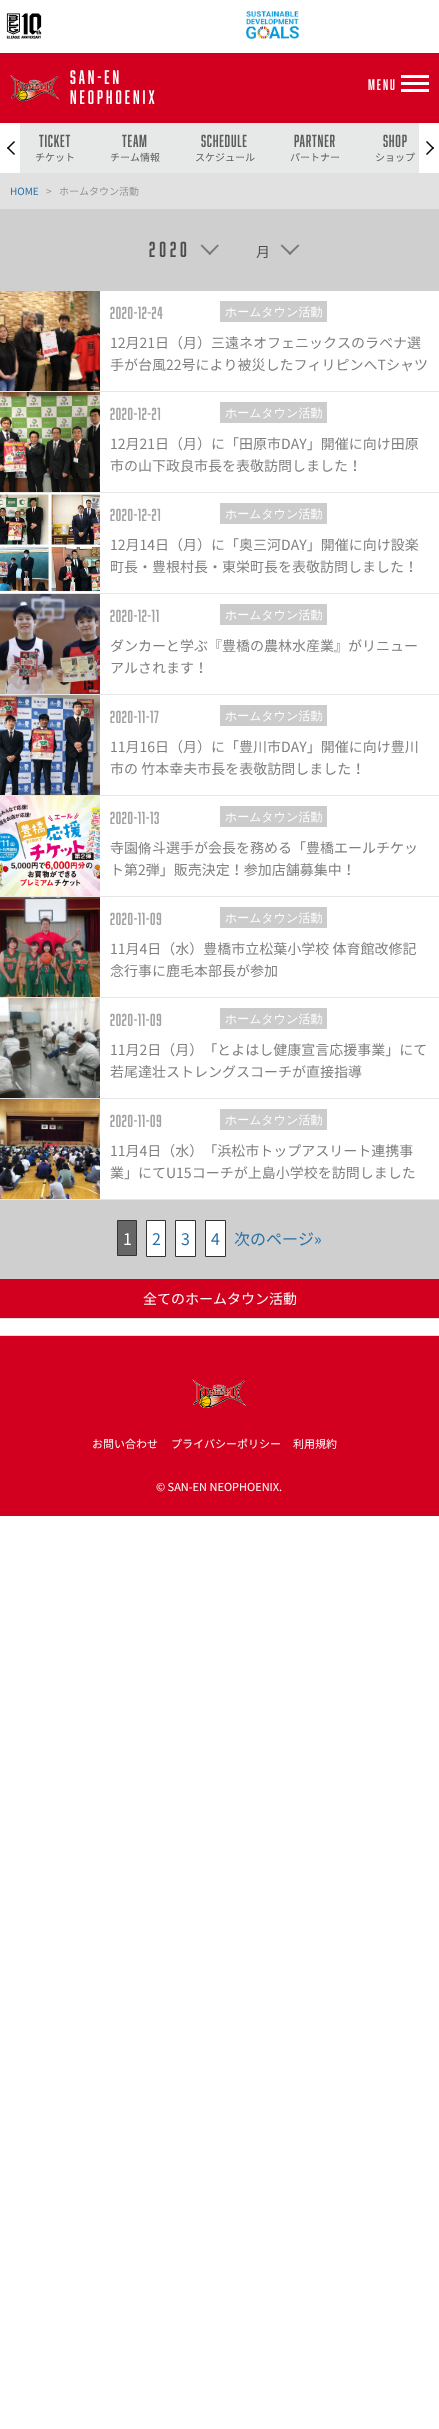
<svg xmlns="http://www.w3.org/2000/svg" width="439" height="2429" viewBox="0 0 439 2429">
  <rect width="100%" height="100%" fill="#fff"/>
  <image x="6" y="13" width="36" height="26" href="img/1.png"/>
  <image x="246" y="11" width="53" height="28" href="img/2.png"/>
  <path d="M0 53h439v70H0z" fill="#d2001e"/>
  <image x="10" y="75" width="50" height="27" href="img/3.png"/>
  <path d="M401 75h28v3H401z" fill="#fff"/>
  <path d="M401 82h28v3H401z" fill="#fff"/>
  <path d="M401 89h28v3H401z" fill="#fff"/>
  <path d="M20 123h399v50H20z" fill="#e7e8e8"/>
  <path d="M8 147L15 154L14 155L7 148Z" fill="#000"/>
  <path d="M7 148L14 141L15 142L8 149Z" fill="#000"/>
  <path d="M427 141L434 148L433 149L426 142Z" fill="#000"/>
  <path d="M426 154L433 147L434 148L427 155Z" fill="#000"/>
  <path d="M0 209h439v1070H0z" fill="#cfcfcf"/>
  <path d="M0 173h439v36H0z" fill="#e1e1e2"/>
  <path d="M202 244.5L211 253.5L209.5 255L200.5 245.5Z" fill="#797979"/>
  <path d="M208.5 253.5L217.5 244.5L219 245.5L210 255Z" fill="#797979"/>
  <path d="M282 244.5L291.5 253.5L290 255L280.5 245.5Z" fill="#797979"/>
  <path d="M288.5 253.5L298 244.5L299.5 245.5L290 255Z" fill="#797979"/>
  <path d="M100 291h339v100H100z" fill="#fff"/>
  <path d="M0 391h439v1H0z" fill="#e6e7e7"/>
  <image x="0" y="291" width="100" height="100" href="img/4.png"/>
  <path d="M220 301h107v21H220z" fill="#ccc"/>
  <path d="M100 392h339v100H100z" fill="#fff"/>
  <path d="M0 492h439v1H0z" fill="#e6e7e7"/>
  <image x="0" y="392" width="100" height="100" href="img/5.png"/>
  <path d="M220 402h107v21H220z" fill="#ccc"/>
  <path d="M0 493h439v100H0z" fill="#fff"/>
  <path d="M0 593h439v1H0z" fill="#e6e7e7"/>
  <image x="0" y="494" width="100" height="98" href="img/6.png"/>
  <path d="M220 503h107v21H220z" fill="#ccc"/>
  <path d="M100 594h339v100H100z" fill="#fff"/>
  <path d="M0 694h439v1H0z" fill="#e6e7e7"/>
  <image x="0" y="594" width="100" height="100" href="img/7.png"/>
  <path d="M220 604h107v21H220z" fill="#ccc"/>
  <path d="M100 695h339v100H100z" fill="#fff"/>
  <path d="M0 795h439v1H0z" fill="#e6e7e7"/>
  <image x="0" y="695" width="100" height="100" href="img/8.png"/>
  <path d="M220 705h107v21H220z" fill="#ccc"/>
  <path d="M100 796h339v100H100z" fill="#fff"/>
  <path d="M0 896h439v1H0z" fill="#e6e7e7"/>
  <image x="0" y="796" width="100" height="100" href="img/9.png"/>
  <path d="M220 806h107v21H220z" fill="#ccc"/>
  <path d="M100 897h339v100H100z" fill="#fff"/>
  <path d="M0 997h439v1H0z" fill="#e6e7e7"/>
  <image x="0" y="897" width="100" height="100" href="img/10.png"/>
  <path d="M220 907h107v21H220z" fill="#ccc"/>
  <path d="M100 998h339v100H100z" fill="#fff"/>
  <path d="M0 1098h439v1H0z" fill="#e6e7e7"/>
  <image x="0" y="998" width="100" height="100" href="img/11.png"/>
  <path d="M220 1008h107v21H220z" fill="#ccc"/>
  <path d="M100 1099h339v100H100z" fill="#fff"/>
  <path d="M0 1199h439v1H0z" fill="#e6e7e7"/>
  <image x="0" y="1099" width="100" height="100" href="img/12.png"/>
  <path d="M220 1109h107v21H220z" fill="#ccc"/>
  <path d="M117.5 1220.5h19v35H117.5z" fill="#666" stroke="#333"/>
  <path d="M146.5 1220.5h19v36H146.5z" fill="#fff" stroke="#333"/>
  <path d="M175.5 1220.5h20v36H175.5z" fill="#fff" stroke="#333"/>
  <path d="M205.5 1220.5h20v36H205.5z" fill="#fff" stroke="#333"/>
  <path d="M0 1279h439v39H0z" fill="#d2001e"/>
  <path d="M0 1318h439v1H0z" fill="#ddd"/>
  <path d="M0 1335h439v1H0z" fill="#ddd"/>
  <path d="M0 1336h439v180H0z" fill="#d2001e"/>
  <image x="192" y="1379" width="55" height="30" href="img/13.png"/>
  <g font-family="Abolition" font-size="18" letter-spacing="3" fill="#fff">
    <text x="70" y="84">SAN-EN</text>
    <text x="70" y="104">NEOPHOENIX</text>
  </g>
  <text x="368" y="90" font-family="Abolition" font-size="14" letter-spacing="2" fill="#fff">MENU</text>
  <text x="39" y="147" font-family="Abolition" font-size="16" letter-spacing="0.75" fill="#5c5c5c">TICKET</text>
  <text x="35" y="161" font-family="Noto Sans CJK JP" font-size="10" fill="#5c5c5c">チケット</text>
  <text x="122" y="147" font-family="Abolition" font-size="16" letter-spacing="0.75" fill="#5c5c5c">TEAM</text>
  <text x="110" y="161" font-family="Noto Sans CJK JP" font-size="10" fill="#5c5c5c">チーム情報</text>
  <text x="201" y="147" font-family="Abolition" font-size="16" letter-spacing="0.75" fill="#5c5c5c">SCHEDULE</text>
  <text x="195" y="161" font-family="Noto Sans CJK JP" font-size="10" fill="#5c5c5c">スケジュール</text>
  <text x="294" y="147" font-family="Abolition" font-size="16" letter-spacing="0.75" fill="#5c5c5c">PARTNER</text>
  <text x="290" y="161" font-family="Noto Sans CJK JP" font-size="10" fill="#5c5c5c">パートナー</text>
  <text x="383" y="147" font-family="Abolition" font-size="16" letter-spacing="0.75" fill="#5c5c5c">SHOP</text>
  <text x="375" y="161" font-family="Noto Sans CJK JP" font-size="10" fill="#5c5c5c">ショップ</text>
  <text x="10" y="195" font-family="Noto Sans CJK JP" font-size="10" fill="#2971a7">HOME</text>
  <g font-family="Noto Sans CJK JP" font-size="10" fill="#939393">
    <text x="46" y="195">&gt;</text>
    <text x="59" y="195">ホームタウン活動</text>
  </g>
  <text x="149" y="257" font-family="Abolition" font-size="20" letter-spacing="4" fill="#4c4c4c">2020</text>
  <text x="256" y="257" font-family="Noto Sans CJK JP" font-size="14" fill="#4c4c4c">月</text>
  <text x="110" y="319" font-family="Abolition" font-size="16" letter-spacing="0.75" fill="#a2a2a2">2020-12-24</text>
  <g font-family="Noto Sans CJK JP" font-size="14" fill="#7f7f7f">
    <text x="110" y="348">12月21日（月）三遠ネオフェニックスのラベナ選</text>
    <text x="110" y="370">手が台風22号により被災したフィリピンへTシャツ</text>
  </g>
  <text x="225" y="316" font-family="WenQuanYi Zen Hei" font-size="12" font-weight="500" fill="#fff">ホームタウン活動</text>
  <text x="110" y="420" font-family="Abolition" font-size="16" letter-spacing="0.75" fill="#a2a2a2">2020-12-21</text>
  <g font-family="Noto Sans CJK JP" font-size="14" fill="#7f7f7f">
    <text x="110" y="449">12月21日（月）に「田原市DAY」開催に向け田原</text>
    <text x="110" y="471">市の山下政良市長を表敬訪問しました！</text>
  </g>
  <text x="225" y="417" font-family="WenQuanYi Zen Hei" font-size="12" font-weight="500" fill="#fff">ホームタウン活動</text>
  <text x="110" y="521" font-family="Abolition" font-size="16" letter-spacing="0.75" fill="#a2a2a2">2020-12-21</text>
  <g font-family="Noto Sans CJK JP" font-size="14" fill="#7f7f7f">
    <text x="110" y="550">12月14日（月）に「奥三河DAY」開催に向け設楽</text>
    <text x="110" y="572">町長・豊根村長・東栄町長を表敬訪問しました！</text>
  </g>
  <text x="225" y="518" font-family="WenQuanYi Zen Hei" font-size="12" font-weight="500" fill="#fff">ホームタウン活動</text>
  <text x="110" y="622" font-family="Abolition" font-size="16" letter-spacing="0.75" fill="#a2a2a2">2020-12-11</text>
  <g font-family="Noto Sans CJK JP" font-size="14" fill="#7f7f7f">
    <text x="110" y="651">ダンカーと学ぶ『豊橋の農林水産業』がリニュー</text>
    <text x="110" y="673">アルされます！</text>
  </g>
  <text x="225" y="619" font-family="WenQuanYi Zen Hei" font-size="12" font-weight="500" fill="#fff">ホームタウン活動</text>
  <text x="110" y="723" font-family="Abolition" font-size="16" letter-spacing="0.75" fill="#a2a2a2">2020-11-17</text>
  <g font-family="Noto Sans CJK JP" font-size="14" fill="#7f7f7f">
    <text x="110" y="752">11月16日（月）に「豊川市DAY」開催に向け豊川</text>
    <text x="110" y="774">市の 竹本幸夫市長を表敬訪問しました！</text>
  </g>
  <text x="225" y="720" font-family="WenQuanYi Zen Hei" font-size="12" font-weight="500" fill="#fff">ホームタウン活動</text>
  <text x="110" y="824" font-family="Abolition" font-size="16" letter-spacing="0.75" fill="#a2a2a2">2020-11-13</text>
  <text x="110" y="853" font-family="Noto Sans CJK JP" font-size="14" fill="#7f7f7f">寺園</text>
  <text x="138" y="853" font-family="WenQuanYi Zen Hei" font-size="14" font-weight="500" fill="#7f7f7f">脩</text>
  <g font-family="Noto Sans CJK JP" font-size="14" fill="#7f7f7f">
    <text x="152" y="853">斗選手が会長を務める「豊橋エールチケッ</text>
    <text x="110" y="875">ト第2弾」販売決定！参加店舗募集中！</text>
  </g>
  <text x="225" y="821" font-family="WenQuanYi Zen Hei" font-size="12" font-weight="500" fill="#fff">ホームタウン活動</text>
  <text x="110" y="925" font-family="Abolition" font-size="16" letter-spacing="0.75" fill="#a2a2a2">2020-11-09</text>
  <g font-family="Noto Sans CJK JP" font-size="14" fill="#7f7f7f">
    <text x="110" y="954">11月4日（水）豊橋市立松葉小学校 体育館改修記</text>
    <text x="110" y="976">念行事に鹿毛本部長が参加</text>
  </g>
  <text x="225" y="922" font-family="WenQuanYi Zen Hei" font-size="12" font-weight="500" fill="#fff">ホームタウン活動</text>
  <text x="110" y="1026" font-family="Abolition" font-size="16" letter-spacing="0.75" fill="#a2a2a2">2020-11-09</text>
  <g font-family="Noto Sans CJK JP" font-size="14" fill="#7f7f7f">
    <text x="110" y="1055">11月2日（月）「とよはし健康宣言応援事業」にて</text>
    <text x="110" y="1077">若尾達壮ストレングスコーチが直接指導</text>
  </g>
  <text x="225" y="1023" font-family="WenQuanYi Zen Hei" font-size="12" font-weight="500" fill="#fff">ホームタウン活動</text>
  <text x="110" y="1127" font-family="Abolition" font-size="16" letter-spacing="0.75" fill="#a2a2a2">2020-11-09</text>
  <g font-family="Noto Sans CJK JP" font-size="14" fill="#7f7f7f">
    <text x="110" y="1156">11月4日（水）「浜松市トップアスリート連携事</text>
    <text x="110" y="1178">業」にてU15コーチが上島小学校を訪問しました</text>
  </g>
  <text x="225" y="1124" font-family="WenQuanYi Zen Hei" font-size="12" font-weight="500" fill="#fff">ホームタウン活動</text>
  <text x="123" y="1245" font-family="Noto Sans CJK JP" font-size="16" letter-spacing="-1" fill="#fff">1</text>
  <g font-family="Noto Sans CJK JP" font-size="16" fill="#2971a7">
    <text x="152" y="1245">2</text>
    <text x="181" y="1245">3</text>
    <text x="211" y="1245">4</text>
    <text x="234" y="1245">次のページ»</text>
  </g>
  <text x="143" y="1304" font-family="Noto Sans CJK JP" font-size="14" fill="#fff">全てのホームタウン活動</text>
  <g font-family="Noto Sans CJK JP" font-size="11" fill="#fff">
    <text x="92" y="1448">お問い合わせ</text>
    <text x="171" y="1448">プライバシーポリシー</text>
    <text x="293" y="1448">利用規約</text>
    <text x="156" y="1491">© SAN-EN NEOPHOENIX.</text>
  </g>
</svg>
